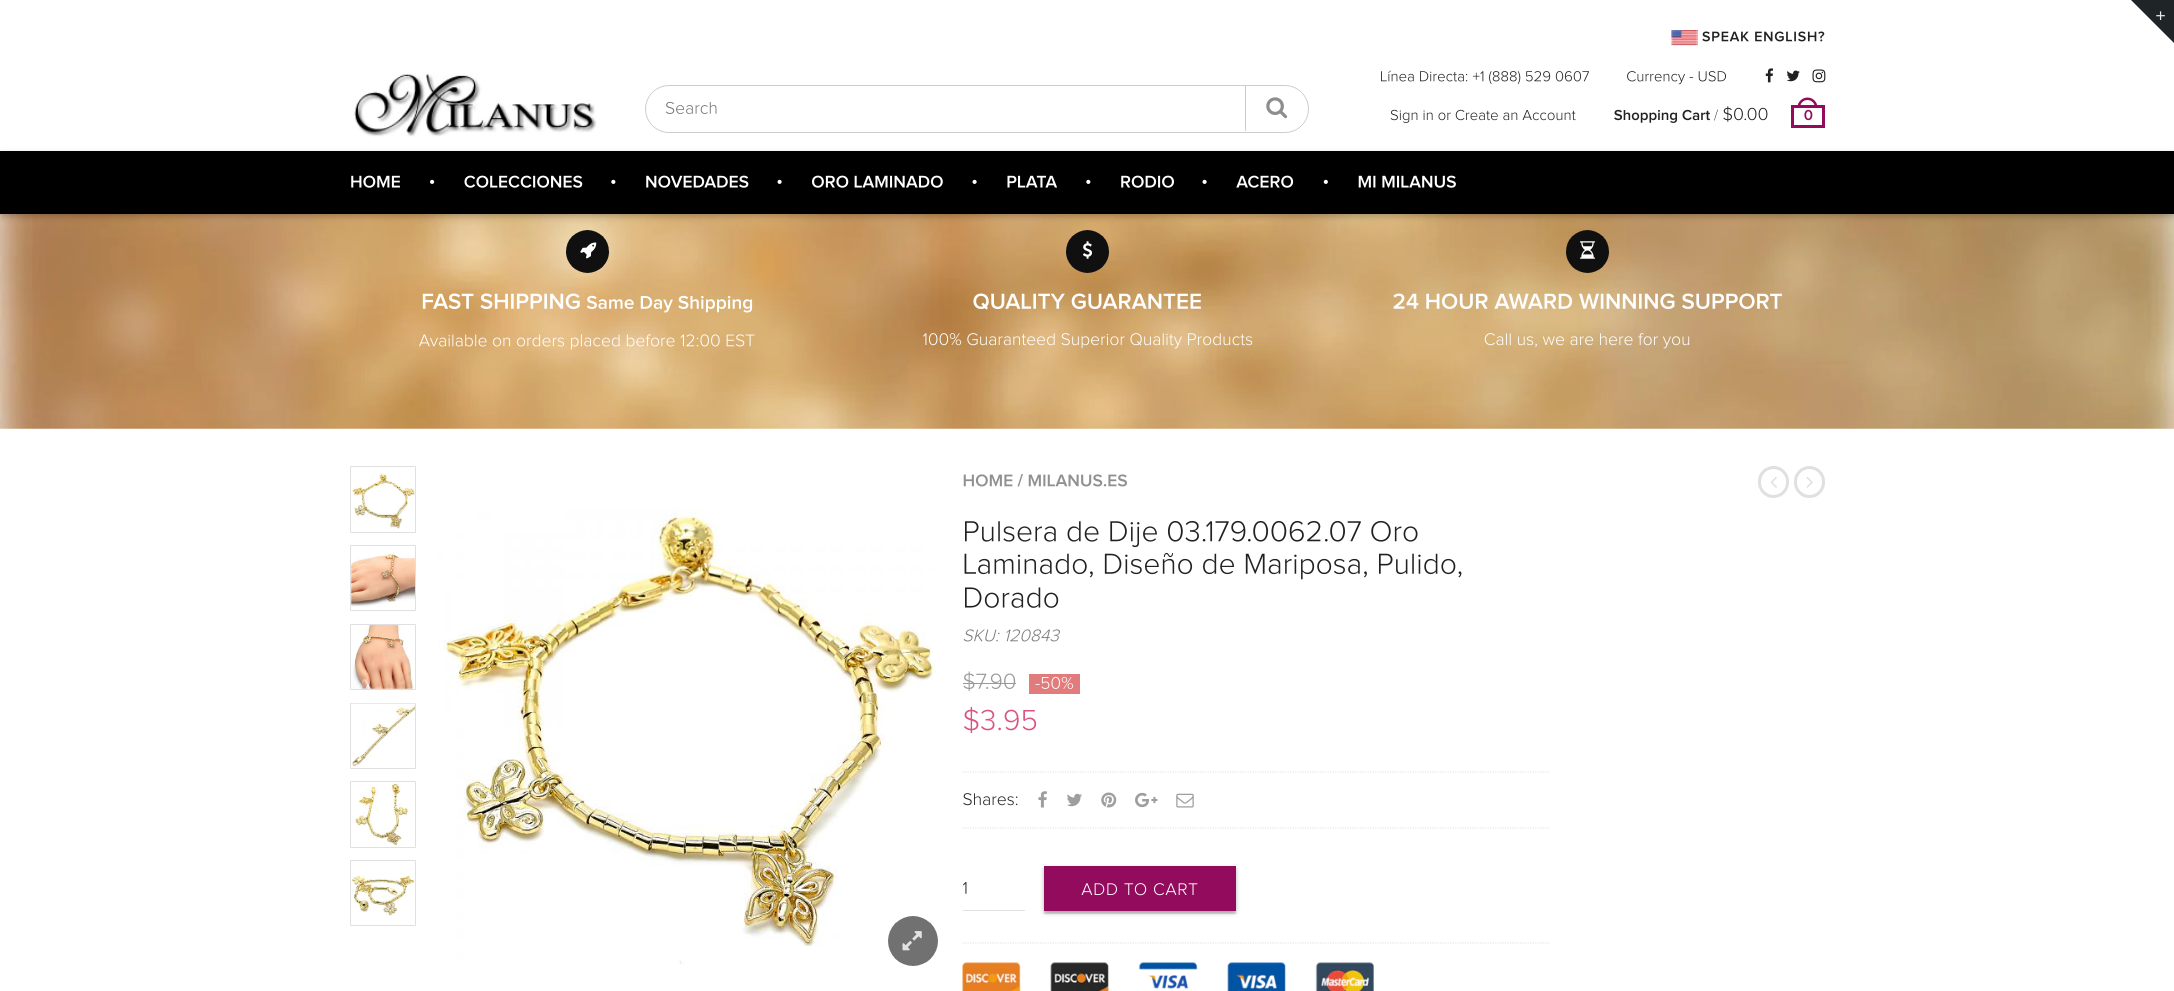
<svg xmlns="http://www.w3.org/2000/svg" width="2174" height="991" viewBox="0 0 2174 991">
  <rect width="100%" height="100%" fill="#fff"/>
  <path d="M2131 0H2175V44Z" fill="#1f2527"/>
  <image x="2156" y="11" width="9" height="9" href="img/1.png"/>
  <image x="1671" y="30" width="27" height="16" href="img/2.png"/>
  <image x="1702" y="31" width="123" height="11" href="img/3.png"/>
  <image x="354" y="73" width="243" height="64" href="img/4.png"/>
  <rect x="645.5" y="85.5" width="663" height="47" rx="23.5" fill="none" stroke="#ccc"/>
  <image x="665" y="101" width="52" height="13" href="img/5.png"/>
  <path d="M1245 86h1v45H1245z" fill="#ccc"/>
  <image x="1266" y="97" width="22" height="22" href="img/6.png"/>
  <image x="1381" y="70" width="87" height="12" href="img/7.png"/>
  <image x="1472" y="71" width="117" height="14" href="img/8.png"/>
  <image x="1627" y="71" width="67" height="14" href="img/9.png"/>
  <image x="1698" y="71" width="28" height="11" href="img/10.png"/>
  <image x="1765" y="68" width="9" height="15" href="img/11.png"/>
  <image x="1786" y="70" width="14" height="12" href="img/12.png"/>
  <image x="1812" y="69" width="14" height="14" href="img/13.png"/>
  <image x="1390" y="109" width="186" height="14" href="img/14.png"/>
  <image x="1614" y="109" width="96" height="14" href="img/15.png"/>
  <path d="M1714.5 120.5L1718 109.5H1717.5L1714 120.5Z" fill="#212121"/>
  <image x="1723" y="106" width="45" height="16" href="img/16.png"/>
  <path d="M1807.5 97.5C1813 97.5 1817.5 102 1817.5 107.5H1797.5C1797.5 102 1802 97.5 1807.5 97.5ZM1807.5 100C1811.5 100 1815 103.5 1815 107.5H1800C1800 103.5 1803.5 100 1807.5 100Z" fill="#930b5d" fill-rule="evenodd"/>
  <path d="M1792.5 106.5h31v20H1792.5z" fill="none" stroke="#930b5d" stroke-width="3"/>
  <image x="1804" y="109" width="9" height="12" href="img/17.png"/>
  <image x="0" y="214" width="2174" height="215" href="img/30.png"/>
  <path d="M0 154h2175v62H0z" fill="#00000042" filter="blur(3px)"/>
  <path d="M0 151h2174v63H0z" fill="#000"/>
  <image x="351" y="175" width="49" height="13" href="img/18.png"/>
  <image x="430" y="179" width="5" height="5" href="img/19.png"/>
  <image x="464" y="175" width="119" height="13" href="img/20.png"/>
  <image x="611" y="179" width="5" height="5" href="img/21.png"/>
  <image x="646" y="175" width="103" height="13" href="img/22.png"/>
  <image x="777" y="179" width="5" height="5" href="img/23.png"/>
  <image x="812" y="175" width="131" height="13" href="img/24.png"/>
  <image x="972" y="179" width="5" height="5" href="img/23.png"/>
  <image x="1007" y="175" width="51" height="13" href="img/25.png"/>
  <image x="1086" y="179" width="5" height="5" href="img/21.png"/>
  <image x="1121" y="175" width="53" height="13" href="img/26.png"/>
  <image x="1202" y="179" width="5" height="5" href="img/23.png"/>
  <image x="1236" y="175" width="58" height="13" href="img/27.png"/>
  <image x="1323" y="179" width="5" height="5" href="img/28.png"/>
  <image x="1358" y="175" width="98" height="13" href="img/29.png"/>
  <circle cx="587.5" cy="251.5" r="21.5" fill="#101010"/>
  <image x="580" y="242" width="17" height="17" href="img/31.png"/>
  <image x="422" y="293" width="158" height="16" href="img/32.png"/>
  <image x="586" y="295" width="167" height="18" href="img/33.png"/>
  <image x="419" y="334" width="336" height="16" href="img/34.png"/>
  <circle cx="1087.5" cy="251.5" r="21.5" fill="#101010"/>
  <image x="1083" y="241" width="9" height="18" href="img/35.png"/>
  <image x="973" y="293" width="228" height="17" href="img/36.png"/>
  <image x="923" y="333" width="330" height="16" href="img/37.png"/>
  <circle cx="1587.5" cy="251.5" r="21.5" fill="#101010"/>
  <image x="1580" y="241" width="15" height="18" href="img/38.png"/>
  <image x="1393" y="293" width="389" height="16" href="img/39.png"/>
  <image x="1484" y="333" width="206" height="16" href="img/40.png"/>
  <path d="M350.5 466.5h65v66H350.5z" fill="none" stroke="#e0e0e0"/>
  <image x="351" y="473" width="64" height="56" href="img/41.png"/>
  <path d="M350.5 545.5h65v65H350.5z" fill="none" stroke="#e0e0e0"/>
  <image x="351" y="553" width="64" height="54" href="img/42.png"/>
  <path d="M350.5 624.5h65v65H350.5z" fill="none" stroke="#e0e0e0"/>
  <image x="351" y="625" width="63" height="64" href="img/43.png"/>
  <path d="M350.5 703.5h65v65H350.5z" fill="none" stroke="#e0e0e0"/>
  <image x="351" y="703" width="64" height="64" href="img/44.png"/>
  <path d="M350.5 781.5h65v66H350.5z" fill="none" stroke="#e0e0e0"/>
  <image x="354" y="782" width="55" height="64" href="img/45.png"/>
  <path d="M350.5 860.5h65v65H350.5z" fill="none" stroke="#e0e0e0"/>
  <image x="351" y="874" width="64" height="42" href="img/46.png"/>
  <image x="438" y="508" width="498" height="457" href="img/47.png"/>
  <circle cx="913" cy="941" r="25" fill="#717171"/>
  <image x="902" y="931" width="20" height="20" href="img/48.png"/>
  <image x="963" y="474" width="50" height="13" href="img/49.png"/>
  <path d="M1019 486.5L1023 474H1021.5L1017.5 486.5Z" fill="#909090"/>
  <image x="1028" y="474" width="99" height="13" href="img/50.png"/>
  <image x="965" y="520" width="453" height="28" href="img/51.png"/>
  <image x="964" y="552" width="498" height="28" href="img/52.png"/>
  <image x="965" y="587" width="94" height="21" href="img/53.png"/>
  <image x="963" y="629" width="37" height="13" href="img/54.png"/>
  <image x="1006" y="629" width="54" height="13" href="img/55.png"/>
  <image x="963" y="671" width="53" height="20" href="img/56.png"/>
  <path d="M1029 674h51v20H1029z" fill="#e27c7c"/>
  <path d="M963 683h53v1H963z" fill="#999"/>
  <image x="1035" y="676" width="39" height="13" href="img/57.png"/>
  <image x="964" y="706" width="73" height="27" href="img/58.png"/>
  <path d="M962.5 772H1550" fill="none" stroke="#e0e0e0" stroke-width="1.2" stroke-dasharray="1.25 1.25"/>
  <path d="M962.5 828H1550" fill="none" stroke="#e0e0e0" stroke-width="1.2" stroke-dasharray="1.25 1.25"/>
  <image x="963" y="793" width="55" height="13" href="img/59.png"/>
  <image x="1038" y="791" width="9" height="17" href="img/60.png"/>
  <image x="1067" y="793" width="15" height="14" href="img/61.png"/>
  <image x="1101" y="792" width="16" height="16" href="img/62.png"/>
  <image x="1135" y="792" width="23" height="16" href="img/63.png"/>
  <image x="1176" y="793" width="18" height="15" href="img/64.png"/>
  <path d="M963 910h62v1H963z" fill="#e0e0e0"/>
  <image x="963" y="882" width="4" height="12" href="img/65.png"/>
  <path d="M1044 868h192v45H1044z" fill="#0000004d" filter="blur(2px)"/>
  <path d="M1044 869h192v45H1044z" fill="#0000001a" filter="blur(0.5px)"/>
  <path d="M1044 866h192v45H1044z" fill="#930b5d"/>
  <image x="1081" y="883" width="117" height="13" href="img/66.png"/>
  <path d="M962.5 943H1550" fill="none" stroke="#e0e0e0" stroke-width="1.2" stroke-dasharray="1.25 1.25"/>
  <image x="962" y="962" width="412" height="29" href="img/67.png"/>
  <rect x="1759.5" y="467.5" width="28" height="29" rx="14" fill="none" stroke="#e0e0e0" stroke-width="3"/>
  <image x="1770" y="477" width="7" height="11" href="img/68.png"/>
  <rect x="1795.5" y="467.5" width="28" height="29" rx="14" fill="none" stroke="#e0e0e0" stroke-width="3"/>
  <image x="1806" y="477" width="7" height="11" href="img/69.png"/>
</svg>
